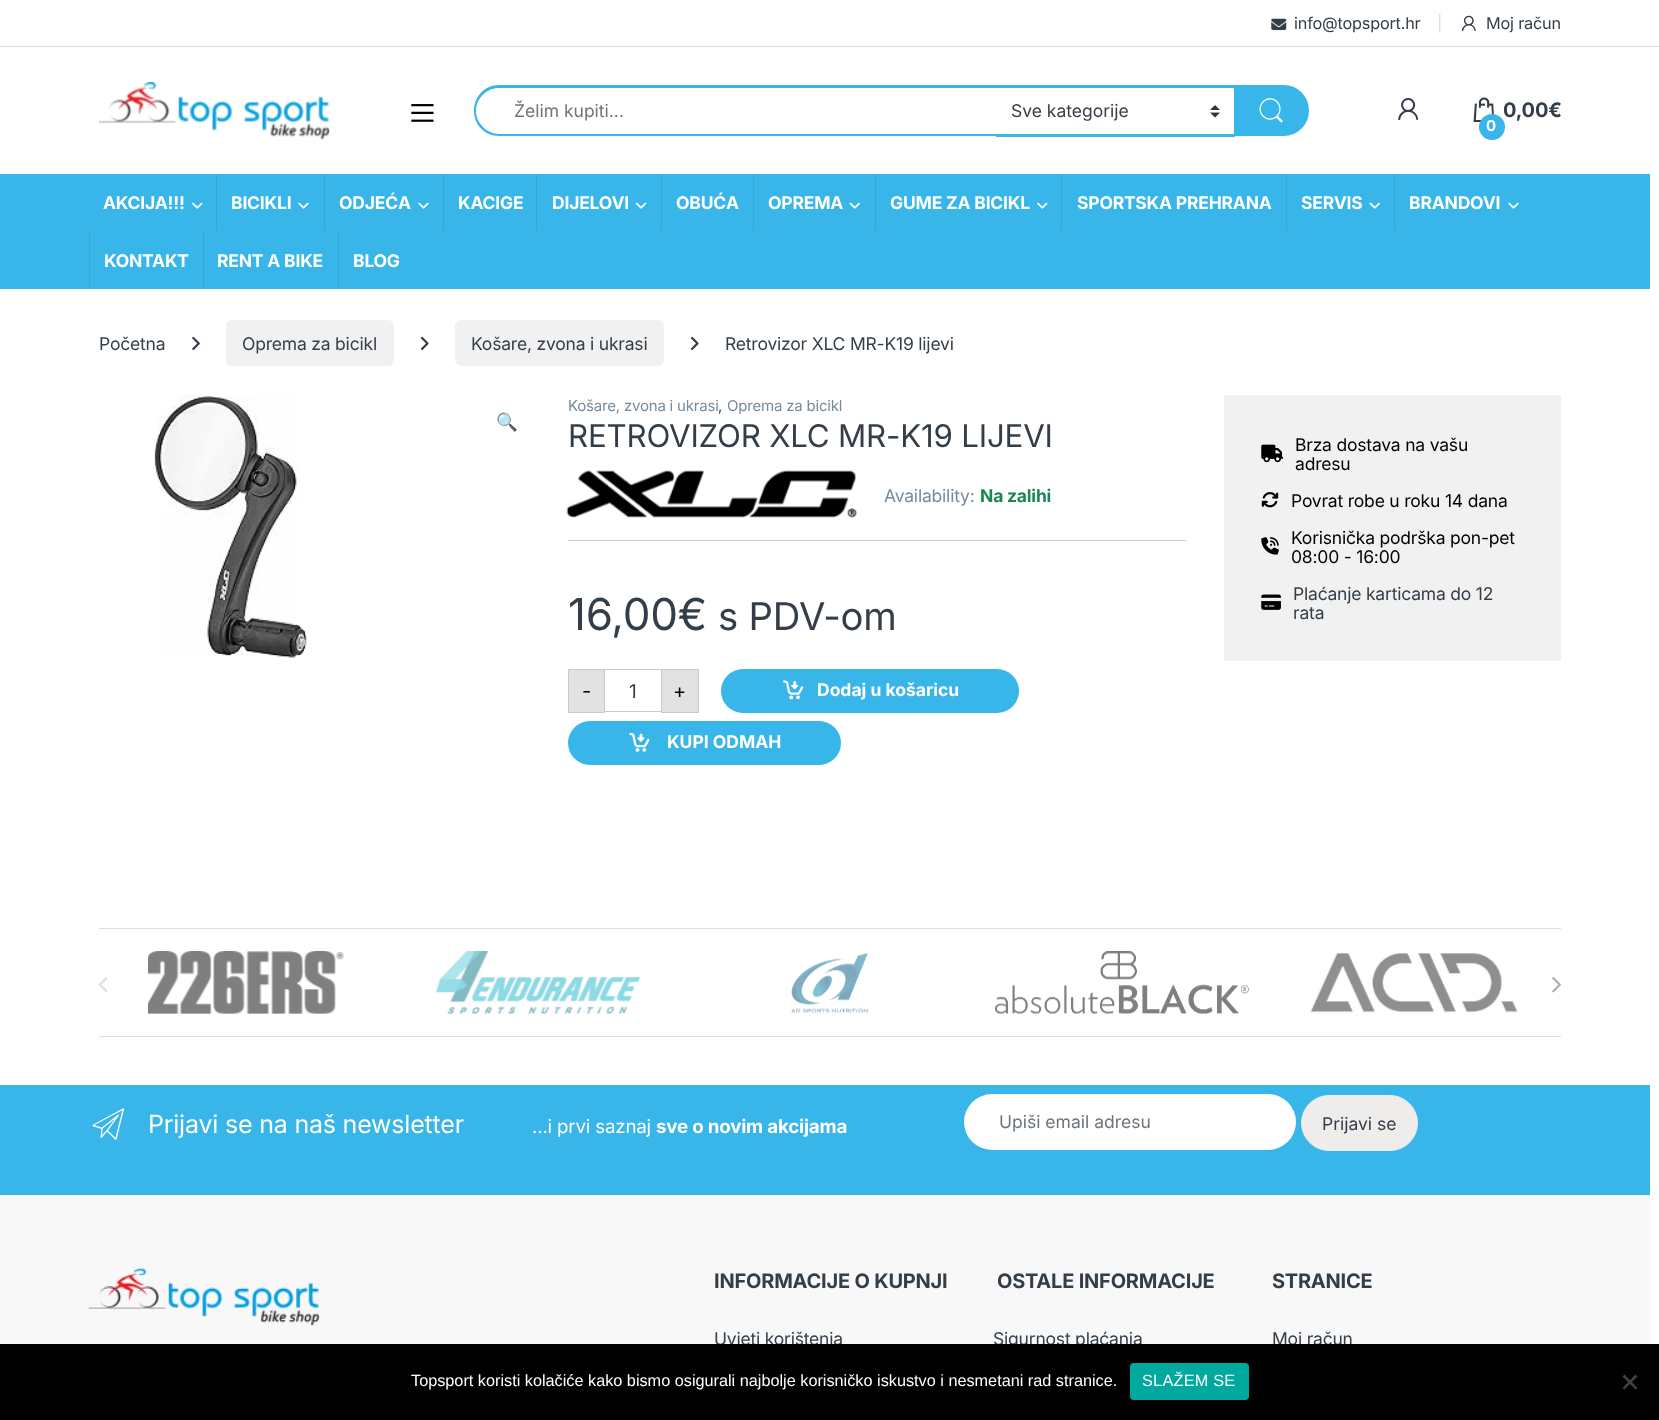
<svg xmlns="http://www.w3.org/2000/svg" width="1659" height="1420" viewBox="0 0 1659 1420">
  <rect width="100%" height="100%" fill="#fff"/>
  <path d="M0 46h1659v1H0z" fill="#ddd"/>
  <image x="1271" y="18" width="16" height="12" href="img/1.png"/>
  <image x="1461" y="15" width="15" height="17" href="img/2.png"/>
  <image x="99" y="82" width="231" height="58" href="img/3.png"/>
  <image x="411" y="104" width="23" height="18" href="img/4.png"/>
  <path d="M996 85h239v3H996z" fill="#38b5e9"/>
  <path d="M996 134h239v3H996z" fill="#38b5e9"/>
  <path d="M499 85H998V136H499C485 136 474 125 474 111C474 96 485 85 499 85ZM499 88H998V134H499C487 134 476 123 476 111C476 98 487 88 499 88Z" fill="#38b5e9" fill-rule="evenodd"/>
  <image x="1210" y="105" width="10" height="13" href="img/5.png"/>
  <path d="M1235.5 86.5H1283.5C1297 86.5 1307.5 97 1307.5 110.5C1307.5 124 1297 134.5 1283.5 134.5H1235.5Z" fill="#38b5e9" stroke="#38b5e9" stroke-width="3"/>
  <image x="1259" y="98" width="24" height="25" href="img/6.png"/>
  <image x="1398" y="98" width="21" height="22" href="img/7.png"/>
  <image x="1473" y="97" width="21" height="25" href="img/8.png"/>
  <path d="M0 174h1650v115H0z" fill="#38b5e9"/>
  <image x="192" y="202" width="11" height="7" href="img/9.png"/>
  <path d="M216 174h1v57H216z" fill="#34a7d6"/>
  <image x="298" y="202" width="11" height="7" href="img/10.png"/>
  <path d="M324 174h1v57H324z" fill="#34a7d6"/>
  <image x="418" y="202" width="11" height="7" href="img/10.png"/>
  <path d="M443 174h1v57H443z" fill="#34a7d6"/>
  <path d="M536 174h1v57H536z" fill="#34a7d6"/>
  <image x="635" y="202" width="12" height="7" href="img/11.png"/>
  <path d="M661 174h1v57H661z" fill="#34a7d6"/>
  <path d="M753 174h1v57H753z" fill="#34a7d6"/>
  <image x="849" y="202" width="11" height="7" href="img/12.png"/>
  <path d="M875 174h1v57H875z" fill="#34a7d6"/>
  <image x="1037" y="202" width="11" height="7" href="img/9.png"/>
  <path d="M1061 174h1v57H1061z" fill="#34a7d6"/>
  <path d="M1286 174h1v57H1286z" fill="#34a7d6"/>
  <image x="1369" y="202" width="11" height="7" href="img/12.png"/>
  <path d="M1394 174h1v57H1394z" fill="#34a7d6"/>
  <image x="1508" y="202" width="11" height="7" href="img/10.png"/>
  <path d="M89 231h1v58H89z" fill="#34a7d6"/>
  <path d="M203 231h1v58H203z" fill="#34a7d6"/>
  <path d="M338 231h1v58H338z" fill="#34a7d6"/>
  <image x="192" y="336" width="8" height="14" href="img/13.png"/>
  <rect x="226" y="320" width="168" height="46" rx="6" fill="#f1f1f1"/>
  <image x="421" y="336" width="8" height="14" href="img/14.png"/>
  <rect x="455" y="320" width="209" height="46" rx="6" fill="#f1f1f1"/>
  <image x="691" y="336" width="8" height="14" href="img/14.png"/>
  <image x="154" y="395" width="154" height="263" href="img/15.png"/>
  <image x="566" y="470" width="291" height="48" href="img/16.png"/>
  <path d="M568 540h618v1H568z" fill="#cccfd1"/>
  <path d="M568.5 669.5h36v43H568.5z" fill="#e2e2e2" stroke="#cac9c9"/>
  <path d="M605 669h56v1H605z" fill="#cac9c9"/>
  <path d="M605 711h56v1H605z" fill="#cac9c9"/>
  <path d="M661.5 669.5h37v43H661.5z" fill="#e2e2e2" stroke="#cac9c9"/>
  <rect x="721" y="669" width="298" height="44" rx="22" fill="#38b5e9"/>
  <image x="783" y="680" width="21" height="20" href="img/17.png"/>
  <rect x="568" y="721" width="273" height="44" rx="22" fill="#38b5e9"/>
  <image x="629" y="732" width="21" height="20" href="img/18.png"/>
  <path d="M1224 395h337v266H1224z" fill="#f1f1f1"/>
  <image x="1261" y="444" width="23" height="19" href="img/19.png"/>
  <image x="1261" y="492" width="18" height="16" href="img/20.png"/>
  <image x="1261" y="537" width="18" height="18" href="img/21.png"/>
  <image x="1261" y="594" width="20" height="16" href="img/22.png"/>
  <path d="M99 928h1462v1H99z" fill="#ddd"/>
  <path d="M99 1036h1462v1H99z" fill="#ddd"/>
  <image x="148" y="951" width="197" height="63" href="img/23.png"/>
  <image x="435" y="951" width="206" height="63" href="img/24.png"/>
  <image x="791" y="953" width="77" height="61" href="img/25.png"/>
  <image x="995" y="951" width="254" height="63" href="img/26.png"/>
  <image x="1310" y="953" width="208" height="60" href="img/27.png"/>
  <image x="98" y="977" width="10" height="16" href="img/28.png"/>
  <image x="1552" y="977" width="9" height="16" href="img/29.png"/>
  <path d="M0 1085h1650v110H0z" fill="#38b5e9"/>
  <image x="92" y="1108" width="32" height="32" href="img/30.png"/>
  <rect x="964" y="1094" width="332" height="56" rx="28" fill="#fff"/>
  <rect x="1301.5" y="1095.5" width="116" height="55" rx="27.5" fill="#efecec" stroke="#efecec"/>
  <path d="M0 1195h1650v149H0z" fill="#f8f8f8"/>
  <image x="88" y="1268" width="232" height="58" href="img/31.png"/>
  <text x="1294" y="29" font-family="Inter" font-size="16.25" letter-spacing="-0.2" fill="#333e48">info@topsport.hr</text>
  <text x="1437" y="29" font-family="Inter" font-size="16.25" letter-spacing="-0.2" fill="#ddd">|</text>
  <text x="1486" y="29" font-family="Inter" font-size="16.25" letter-spacing="-0.2" fill="#333e48">Moj račun</text>
  <text x="514" y="117" font-family="Inter" font-size="17.5" fill="#6c757d">Želim kupiti...</text>
  <text x="1011" y="117" font-family="Inter" font-size="17.5" fill="#333e48">Sve kategorije</text>
  <text x="1503" y="117" font-family="Inter" font-size="20" font-weight="bold" letter-spacing="-0.2" fill="#333e48">0,00€</text>
  <circle cx="1492" cy="127" r="13" fill="#38b5e9"/>
  <text x="1486" y="131" font-family="Inter" font-size="15" font-weight="bold" letter-spacing="-0.2" fill="#fff">0</text>
  <g font-family="Inter" font-size="17.5" font-weight="bold" letter-spacing="-0.2" fill="#fff">
    <text x="103" y="209">AKCIJA!!!</text>
    <text x="231" y="209">BICIKLI</text>
    <text x="339" y="209">ODJEĆA</text>
    <text x="458" y="209">KACIGE</text>
    <text x="552" y="209">DIJELOVI</text>
    <text x="676" y="209">OBUĆA</text>
    <text x="768" y="209">OPREMA</text>
    <text x="890" y="209">GUME ZA BICIKL</text>
    <text x="1077" y="209">SPORTSKA PREHRANA</text>
    <text x="1301" y="209">SERVIS</text>
    <text x="1409" y="209">BRANDOVI</text>
    <text x="104" y="267">KONTAKT</text>
    <text x="217" y="267">RENT A BIKE</text>
    <text x="353" y="267">BLOG</text>
  </g>
  <g font-family="Inter" font-size="17.5" letter-spacing="-0.2" fill="#333e48">
    <text x="99" y="350">Početna</text>
    <text x="242" y="350">Oprema za bicikl</text>
    <text x="471" y="350">Košare, zvona i ukrasi</text>
    <text x="725" y="350">Retrovizor XLC MR-K19 lijevi</text>
  </g>
  <text x="496" y="428" font-family="Noto Color Emoji" font-size="17.5" letter-spacing="-0.2" fill="#333e48">🔍</text>
  <text x="568" y="411" font-family="Inter" font-size="15" letter-spacing="-0.2" fill="#768b9e">Košare, zvona i ukrasi</text>
  <text x="718" y="411" font-family="Inter" font-size="15" letter-spacing="-0.2" fill="#333e48">,</text>
  <text x="727" y="411" font-family="Inter" font-size="15" letter-spacing="-0.2" fill="#768b9e">Oprema za bicikl</text>
  <text x="568" y="447" font-family="Inter" font-size="31.25" letter-spacing="-0.2" fill="#333e48">RETROVIZOR XLC MR-K19 LIJEVI</text>
  <text x="884" y="502" font-family="Inter" font-size="17.5" letter-spacing="-0.2" fill="#768b9e">Availability:</text>
  <text x="980" y="502" font-family="Inter" font-size="17.5" font-weight="bold" letter-spacing="-0.2" fill="#198754">Na zalihi</text>
  <text x="568" y="630" font-family="Inter" font-size="44" letter-spacing="-0.2" fill="#333e48">16,00€</text>
  <text x="718" y="630" font-family="Inter" font-size="38.25" letter-spacing="-0.2" fill="#333e48">s PDV-om</text>
  <text x="582" y="698" font-family="Inter" font-size="20" fill="#000">-</text>
  <text x="629" y="698" font-family="Inter" font-size="19" fill="#333e48">1</text>
  <text x="673" y="698" font-family="Inter" font-size="20" fill="#000">+</text>
  <g font-family="Inter" font-size="17.5" font-weight="bold" fill="#fff">
    <text x="817" y="696">Dodaj u košaricu</text>
    <text x="667" y="748">KUPI ODMAH</text>
  </g>
  <g font-family="Inter" font-size="17.5" letter-spacing="-0.2" fill="#000">
    <text x="1295" y="451">Brza dostava na vašu</text>
    <text x="1295" y="470">adresu</text>
    <text x="1291" y="507">Povrat robe u roku 14 dana</text>
    <text x="1291" y="544">Korisnička podrška pon-pet</text>
    <text x="1291" y="563">08:00 - 16:00</text>
  </g>
  <g font-family="Inter" font-size="17.5" letter-spacing="-0.2" fill="#333e48">
    <text x="1293" y="600">Plaćanje karticama do 12</text>
    <text x="1293" y="619">rata</text>
  </g>
  <text x="148" y="1133" font-family="Inter" font-size="25" letter-spacing="-0.2" fill="#fff">Prijavi se na naš newsletter</text>
  <text x="532" y="1133" font-family="Inter" font-size="18.75" letter-spacing="-0.2" fill="#fff">...i prvi saznaj</text>
  <text x="656" y="1133" font-family="Inter" font-size="18.75" font-weight="bold" letter-spacing="-0.2" fill="#fff">sve o novim akcijama</text>
  <text x="999" y="1128" font-family="Inter" font-size="17.5" fill="#6c757d">Upiši email adresu</text>
  <text x="1322" y="1130" font-family="Inter" font-size="17.5" fill="#333e48">Prijavi se</text>
  <text x="714" y="1288" font-family="Inter" font-size="20" font-weight="bold" letter-spacing="-0.2" fill="#333e48">INFORMACIJE O KUPNJI</text>
  <text x="714" y="1345" font-family="Inter" font-size="17.5" letter-spacing="-0.2" fill="#333e48">Uvjeti korištenja</text>
  <text x="997" y="1288" font-family="Inter" font-size="20" font-weight="bold" letter-spacing="-0.2" fill="#333e48">OSTALE INFORMACIJE</text>
  <text x="993" y="1345" font-family="Inter" font-size="17.5" letter-spacing="-0.2" fill="#333e48">Sigurnost plaćanja</text>
  <text x="1272" y="1288" font-family="Inter" font-size="20" font-weight="bold" letter-spacing="-0.2" fill="#333e48">STRANICE</text>
  <text x="1272" y="1345" font-family="Inter" font-size="17.5" letter-spacing="-0.2" fill="#333e48">Moj račun</text>
  <path d="M0 1344h1659v76H0z" fill="#000"/>
  <text x="411" y="1386" font-family="Liberation Sans" font-size="16.25" fill="#fff">Topsport koristi kolačiće kako bismo osigurali najbolje korisničko iskustvo i nesmetani rad stranice.</text>
  <rect x="1130" y="1363" width="119" height="37" rx="4" fill="#00a99d"/>
  <text x="1142" y="1386" font-family="Liberation Sans" font-size="16.25" letter-spacing="0.25" fill="#fff">SLAŽEM SE</text>
  <path d="M1635.5 1374.5L1637.5 1376.5L1624.5 1389.5L1622.5 1388Z" fill="#404040"/>
  <path d="M1622.5 1376.5L1624.5 1374.5L1637.5 1388L1635.5 1389.5Z" fill="#404040"/>
</svg>
